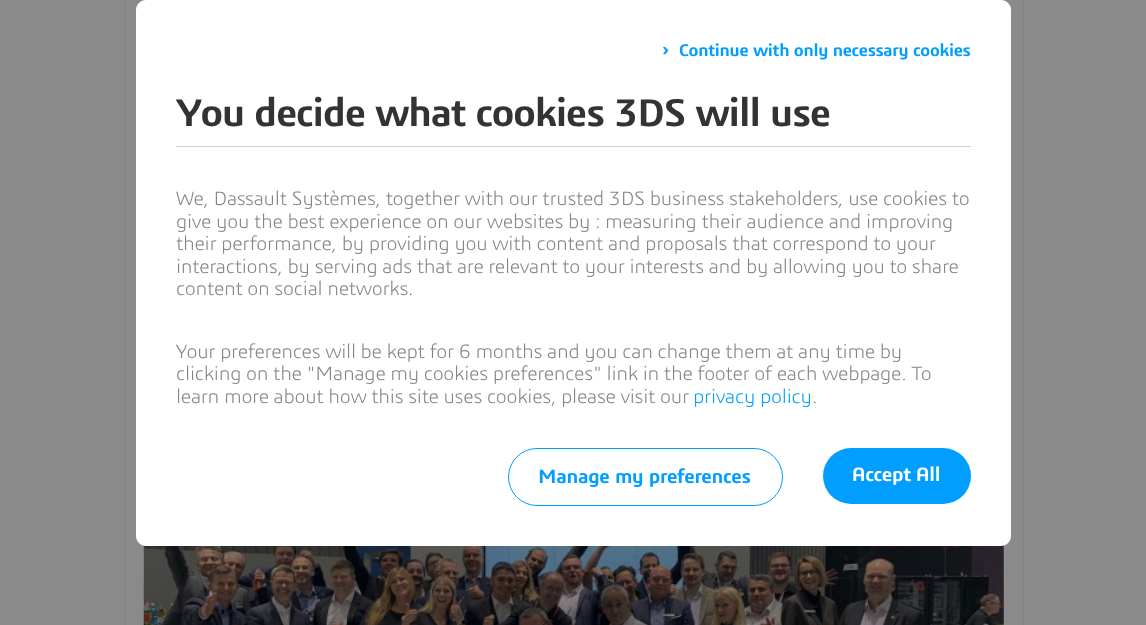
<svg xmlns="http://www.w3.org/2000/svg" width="1146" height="625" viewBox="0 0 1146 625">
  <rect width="100%" height="100%" fill="#8a8a8a"/>
  <path d="M1023 0h1v625H1023z" fill="#818181"/>
  <path d="M124 0h1v625H124z" fill="#818181"/>
  <image x="143" y="545" width="861" height="80" href="img/1.png"/>
  <path d="M146 0H1001C1006.5 0 1011 4.5 1011 10V448H136V10C136 4.5 140.5 0 146 0Z" fill="#fff"/>
  <path d="M176 146h795v1H176z" fill="#d1d1d1"/>
  <path d="M136 448H1011V536C1011 541.5 1006.5 546 1001 546H146C140.5 546 136 541.5 136 536Z" fill="#fff"/>
  <rect x="508.5" y="448.5" width="274" height="57" rx="28.5" fill="none" stroke="#009eff"/>
  <rect x="823" y="448" width="148" height="56" rx="28" fill="#009eff"/>
  <text x="662" y="56" font-family="'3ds'" font-size="20" font-weight="600" letter-spacing="-0.25" fill="#009eff">›</text>
  <text x="679" y="56" font-family="'3ds'" font-size="17.5" font-weight="600" letter-spacing="-0.25" fill="#009eff">Continue with only necessary cookies</text>
  <text x="176" y="126" font-family="'3ds'" font-size="40" font-weight="600" letter-spacing="-1" fill="#333">You decide what cookies 3DS will use</text>
  <g font-family="'3ds'" font-size="20" font-weight="300" letter-spacing="-0.25" fill="#858585">
    <text x="176" y="205">We, Dassault Systèmes, together with our trusted 3DS business stakeholders, use cookies to</text>
    <text x="176" y="228">give you the best experience on our websites by : measuring their audience and improving</text>
    <text x="176" y="250">their performance, by providing you with content and proposals that correspond to your</text>
    <text x="176" y="273">interactions, by serving ads that are relevant to your interests and by allowing you to share</text>
    <text x="176" y="295">content on social networks.</text>
    <text x="176" y="358">Your preferences will be kept for 6 months and you can change them at any time by</text>
    <text x="176" y="380">clicking on the "Manage my cookies preferences" link in the footer of each webpage. To</text>
    <text x="176" y="403">learn more about how this site uses cookies, please visit our</text>
  </g>
  <text x="693" y="403" font-family="'3ds'" font-size="20" font-weight="300" letter-spacing="-0.25" fill="#009eff">privacy policy</text>
  <text x="812" y="403" font-family="'3ds'" font-size="20" font-weight="300" letter-spacing="-0.25" fill="#858585">.</text>
  <text x="538" y="483" font-family="'3ds'" font-size="20" font-weight="600" letter-spacing="-0.25" fill="#009eff">Manage my preferences</text>
  <text x="852" y="481" font-family="'3ds'" font-size="20" font-weight="600" letter-spacing="-0.25" fill="#fff">Accept All</text>
</svg>
